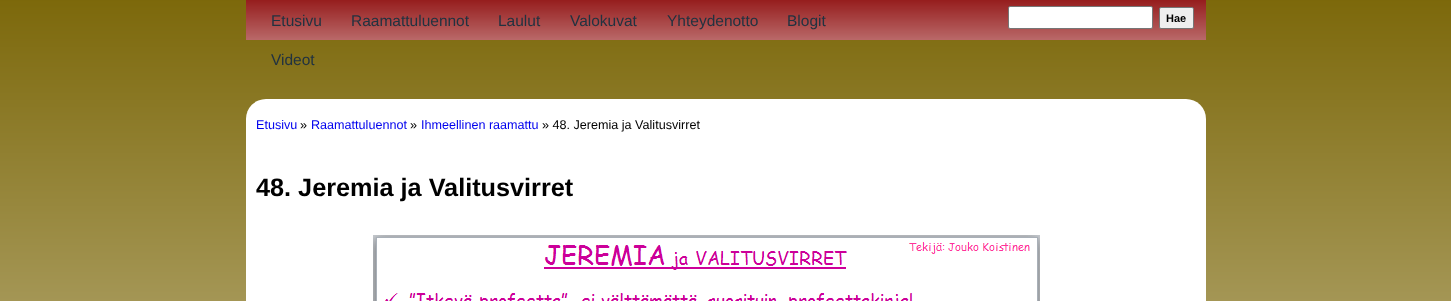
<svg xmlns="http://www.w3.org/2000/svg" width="1451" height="301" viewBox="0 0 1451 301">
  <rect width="100%" height="100%" fill="#fff"/>
  <image x="0" y="0" width="1451" height="301" href="img/1.png"/>
  <image x="246" y="0" width="960" height="40" href="img/2.png"/>
  <rect x="1008.5" y="6.5" width="144" height="22" rx="1.5" fill="#fff" stroke="#767676"/>
  <rect x="1159.5" y="7.5" width="34" height="21" rx="1.5" fill="#efefef" stroke="#767676"/>
  <rect x="246" y="99" width="960" height="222" rx="20" fill="#fff"/>
  <image x="373" y="235" width="667" height="66" href="img/3.png"/>
  <g font-family="Liberation Sans" font-size="15.5" fill="#213240">
    <text x="271" y="26">Etusivu</text>
    <text x="351" y="26">Raamattuluennot</text>
    <text x="498" y="26">Laulut</text>
    <text x="570" y="26">Valokuvat</text>
    <text x="667" y="26">Yhteydenotto</text>
    <text x="787" y="26">Blogit</text>
    <text x="271" y="65">Videot</text>
  </g>
  <text x="1166" y="22" font-family="Liberation Sans" font-size="11" font-weight="bold" fill="#000">Hae</text>
  <text x="256" y="129" font-family="Liberation Sans" font-size="12.6" fill="#00e">Etusivu</text>
  <text x="300" y="129" font-family="Liberation Sans" font-size="12.6" fill="#000">»</text>
  <text x="311" y="129" font-family="Liberation Sans" font-size="12.6" fill="#00e">Raamattuluennot</text>
  <text x="410" y="129" font-family="Liberation Sans" font-size="12.6" fill="#000">»</text>
  <text x="421" y="129" font-family="Liberation Sans" font-size="12.6" fill="#00e">Ihmeellinen raamattu</text>
  <text x="542" y="129" font-family="Liberation Sans" font-size="12.6" fill="#000">» 48. Jeremia ja Valitusvirret</text>
  <text x="256" y="196" font-family="Liberation Sans" font-size="25.25" font-weight="bold" fill="#000">48. Jeremia ja Valitusvirret</text>
</svg>
